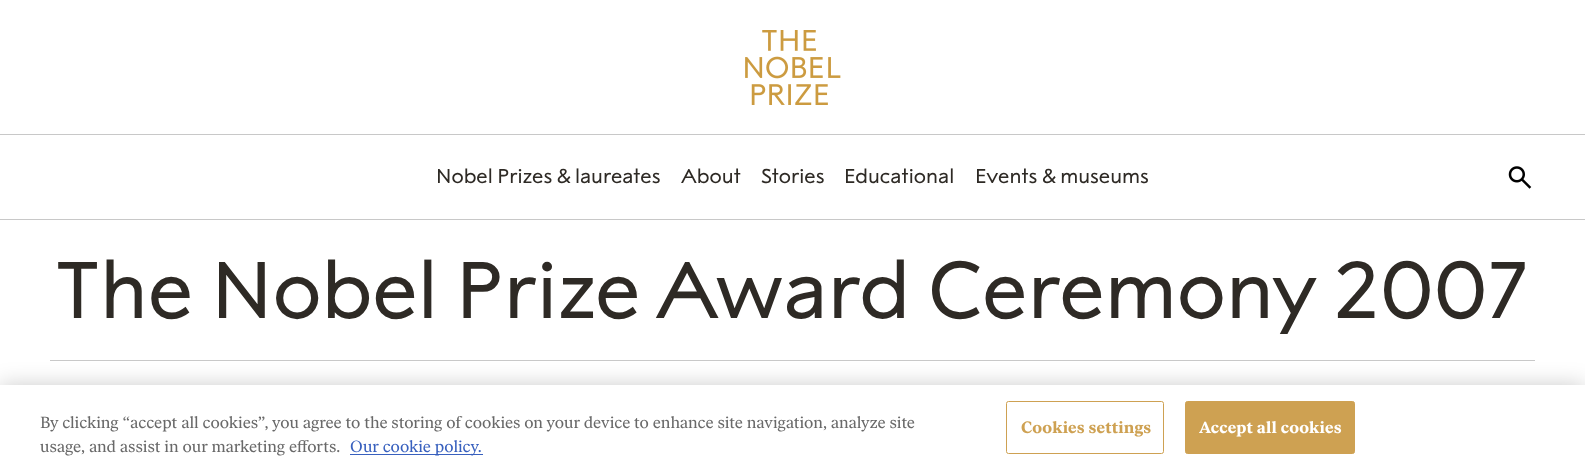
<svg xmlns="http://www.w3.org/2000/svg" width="1585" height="473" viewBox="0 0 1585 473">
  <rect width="100%" height="100%" fill="#fff"/>
  <path d="M0 219h1585v1H0z" fill="#c8c8c8"/>
  <image x="745" y="30" width="96" height="75" href="img/1.png"/>
  <path d="M0 134h1585v1H0z" fill="#c8c8c8"/>
  <image x="1508" y="166" width="24" height="23" href="img/2.png"/>
  <path d="M50 360h1485v1H50z" fill="#c8c8c8"/>
  <path d="M0 385h1585v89H0z" fill="#00000033" filter="blur(11px)"/>
  <path d="M0 385h1585v88H0z" fill="#fff"/>
  <path d="M350 454h133v1H350z" fill="#3860be"/>
  <rect x="1006.5" y="401.5" width="157" height="52" rx="2" fill="none" stroke="#cea152"/>
  <rect x="1185.5" y="401.5" width="169" height="52" rx="2" fill="#cea152" stroke="#cea152"/>
  <g font-family="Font" font-size="20" fill="#2e2a25">
    <text x="436" y="183">Nobel Prizes &amp; laureates</text>
    <text x="681" y="183">About</text>
    <text x="761" y="183">Stories</text>
    <text x="844" y="183">Educational</text>
    <text x="975" y="183">Events &amp; museums</text>
  </g>
  <text x="55" y="318" font-family="Font" font-size="80" fill="#2e2a25">The Nobel Prize Award Ceremony 2007</text>
  <g font-family="'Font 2'" font-size="16.25" fill="#696969">
    <text x="40" y="428">By clicking “accept all cookies”, you agree to the storing of cookies on your device to enhance site navigation, analyze site</text>
    <text x="40" y="452">usage, and assist in our marketing efforts.</text>
  </g>
  <text x="350" y="452" font-family="'Font 2'" font-size="16.25" fill="#3860be">Our cookie policy.</text>
  <text x="1021" y="433" font-family="Font" font-size="16.25" font-weight="bold" letter-spacing="0.2" fill="#cea152">Cookies settings</text>
  <text x="1199" y="433" font-family="Font" font-size="16.25" font-weight="bold" letter-spacing="0.2" fill="#fff">Accept all cookies</text>
</svg>
